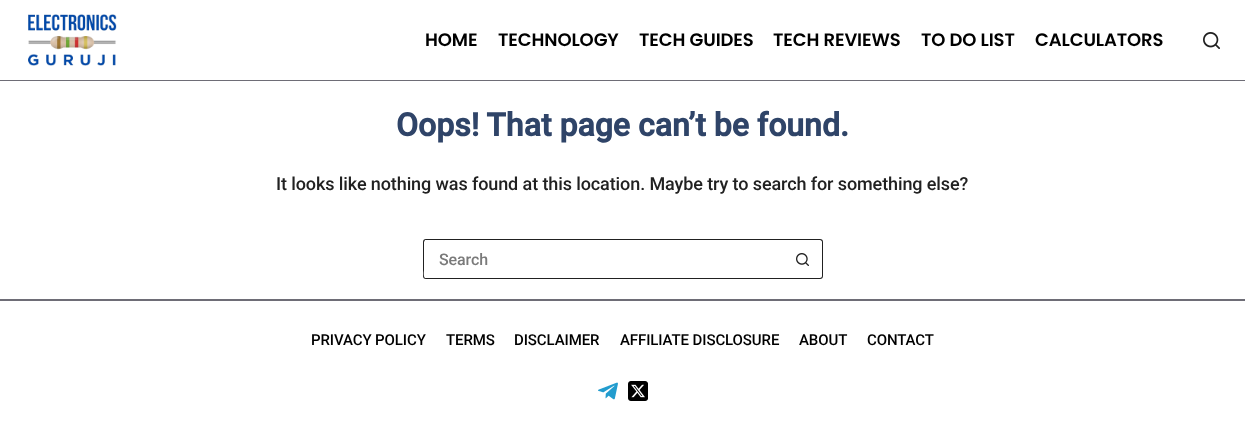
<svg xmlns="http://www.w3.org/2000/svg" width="1245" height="432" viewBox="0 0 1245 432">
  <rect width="100%" height="100%" fill="#fff"/>
  <path d="M0 80h1245v1H0z" fill="#6e6d76"/>
  <image x="28" y="14" width="89" height="52" href="img/1.png"/>
  <image x="1203" y="32" width="17" height="17" href="img/2.png"/>
  <path d="M426 239H783V279H426C424 279 423 278 423 276V242C423 240 424 239 426 239ZM426 240H783V278H425C423 276 424 271 424 270V242L425 240Z" fill="#212121" fill-rule="evenodd"/>
  <path d="M783 239H820C822 239 823 240 823 242V276C823 278 822 279 820 279H783ZM783 240H820C821 240 822 241 822 242V276C822 277 821 278 820 278H783Z" fill="#212121" fill-rule="evenodd"/>
  <image x="796" y="253" width="13" height="13" href="img/3.png"/>
  <path d="M0 299h1245v2H0z" fill="#6e6d76"/>
  <image x="598" y="382" width="20" height="18" href="img/4.png"/>
  <image x="628" y="381" width="20" height="20" href="img/5.png"/>
  <g font-family="Poppins" font-size="18" font-weight="600" letter-spacing="-0.1" fill="#000">
    <text x="425" y="46">HOME</text>
    <text x="498" y="46">TECHNOLOGY</text>
    <text x="639" y="46">TECH GUIDES</text>
    <text x="773" y="46">TECH REVIEWS</text>
    <text x="921" y="46">TO DO LIST</text>
    <text x="1035" y="46">CALCULATORS</text>
  </g>
  <text x="396" y="136" font-family="Roboto" font-size="32" font-weight="bold" fill="#2f4468">Oops! That page can’t be found.</text>
  <text x="276" y="190" font-family="Roboto" font-size="18" font-weight="500" letter-spacing="-0.1" fill="#212121">It looks like nothing was found at this location. Maybe try to search for something else?</text>
  <text x="439" y="265" font-family="Roboto" font-size="16" font-weight="500" letter-spacing="-0.1" fill="#7a7a7a">Search</text>
  <g font-family="Roboto" font-size="15" font-weight="500" letter-spacing="-0.1" fill="#000">
    <text x="311" y="345">PRIVACY POLICY</text>
    <text x="446" y="345">TERMS</text>
    <text x="514" y="345">DISCLAIMER</text>
    <text x="620" y="345">AFFILIATE DISCLOSURE</text>
    <text x="799" y="345">ABOUT</text>
    <text x="867" y="345">CONTACT</text>
  </g>
</svg>
